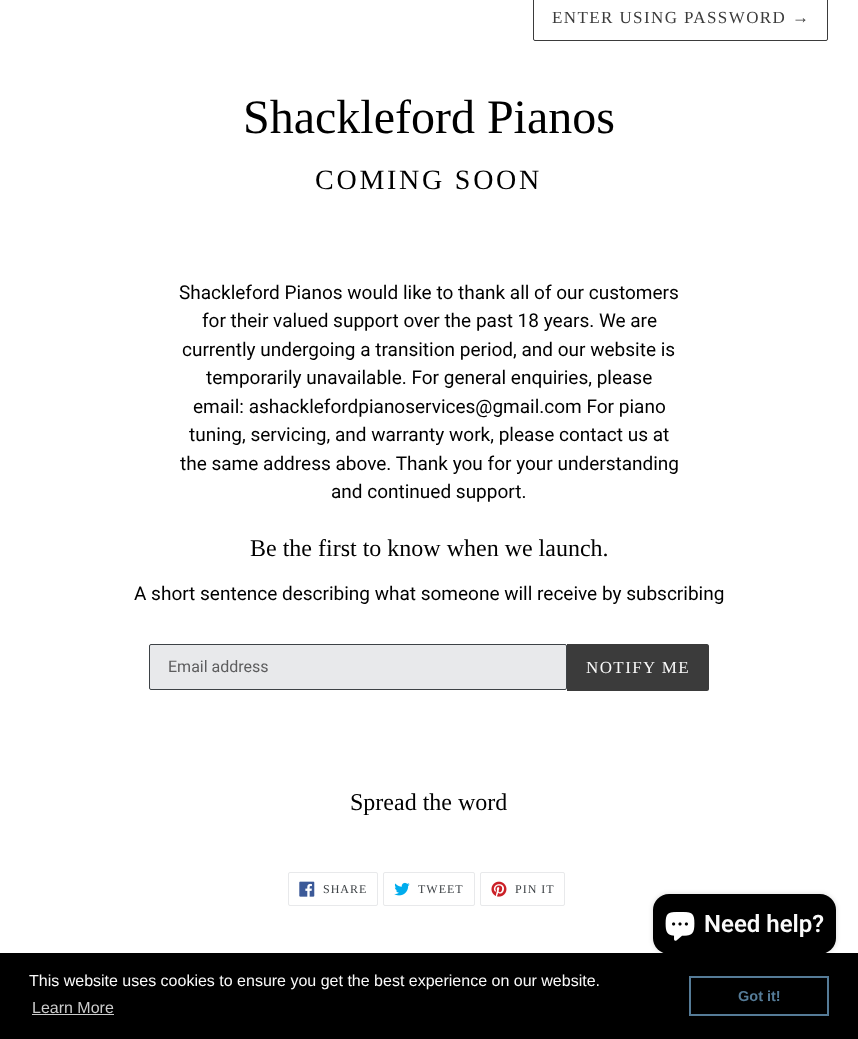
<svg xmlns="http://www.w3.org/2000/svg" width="858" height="1039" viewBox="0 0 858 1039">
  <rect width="100%" height="100%" fill="#fff"/>
  <rect x="533.5" y="-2.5" width="294" height="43" rx="1.5" fill="none" stroke="#3b3b3b"/>
  <rect x="149.5" y="644.5" width="417" height="45" rx="1.5" fill="#e8e9eb" stroke="#3d4246"/>
  <path d="M567 644H707C708 644 709 645 709 646V689C709 690 708 691 707 691H567Z" fill="#3b3b3b"/>
  <rect x="288.5" y="872.5" width="89" height="33" rx="1.5" fill="none" stroke="#e8e9eb"/>
  <image x="299" y="881" width="16" height="16" href="img/1.png"/>
  <rect x="383.5" y="872.5" width="91" height="33" rx="1.5" fill="none" stroke="#e8e9eb"/>
  <image x="394" y="882" width="16" height="14" href="img/2.png"/>
  <rect x="480.5" y="872.5" width="84" height="33" rx="1.5" fill="none" stroke="#e8e9eb"/>
  <image x="491" y="881" width="16" height="16" href="img/3.png"/>
  <path d="M0 953h858v86H0z" fill="#000"/>
  <rect x="653" y="894" width="183" height="60" rx="16" fill="#00000026" filter="blur(2.5px)"/>
  <rect x="653" y="894" width="183" height="60" rx="16" fill="#000"/>
  <image x="665" y="912" width="30" height="29" href="img/4.png"/>
  <path d="M32 1014h82v1H32z" fill="#ccc"/>
  <path d="M690 977h138v38H690z" fill="none" stroke="#557b97" stroke-width="2"/>
  <text x="552" y="23" font-family="Liberation Serif" font-size="17" letter-spacing="1.4" fill="#3b3b3b">ENTER USING PASSWORD →</text>
  <text x="243" y="133" font-family="Liberation Serif" font-size="48" fill="#000">Shackleford Pianos</text>
  <text x="315" y="189" font-family="Liberation Serif" font-size="28" letter-spacing="2.75" fill="#000">COMING SOON</text>
  <g font-family="Roboto" font-size="19" fill="#000">
    <text x="179" y="299">Shackleford Pianos would like to thank all of our customers</text>
    <text x="202" y="327">for their valued support over the past 18 years. We are</text>
    <text x="182" y="356">currently undergoing a transition period, and our website is</text>
    <text x="206" y="384">temporarily unavailable. For general enquiries, please</text>
    <text x="193" y="413">email: ashacklefordpianoservices@gmail.com For piano</text>
    <text x="189" y="441">tuning, servicing, and warranty work, please contact us at</text>
    <text x="180" y="470">the same address above. Thank you for your understanding</text>
    <text x="331" y="498">and continued support.</text>
  </g>
  <text x="250" y="556" font-family="Liberation Serif" font-size="24" fill="#000">Be the first to know when we launch.</text>
  <text x="134" y="600" font-family="Roboto" font-size="19" fill="#000">A short sentence describing what someone will receive by subscribing</text>
  <text x="168" y="672" font-family="Roboto" font-size="16" fill="#5d5d5e">Email address</text>
  <text x="586" y="673" font-family="Liberation Serif" font-size="17" letter-spacing="1.4" fill="#fafafa">NOTIFY ME</text>
  <text x="350" y="810" font-family="Liberation Serif" font-size="24" fill="#000">Spread the word</text>
  <g font-family="Liberation Serif" font-size="12" letter-spacing="1" fill="#3d4246">
    <text x="323" y="893">SHARE</text>
    <text x="418" y="893">TWEET</text>
    <text x="515" y="893">PIN IT</text>
  </g>
  <text x="704" y="932" font-family="Roboto" font-size="24" font-weight="600" fill="#fafafa">Need help?</text>
  <text x="29" y="986" font-family="Liberation Sans" font-size="16" fill="#fafafa">This website uses cookies to ensure you get the best experience on our website.</text>
  <text x="32" y="1013" font-family="Liberation Sans" font-size="16" fill="#ccc">Learn More</text>
  <text x="738" y="1001" font-family="Liberation Sans" font-size="14.5" font-weight="bold" fill="#557b97">Got it!</text>
</svg>
